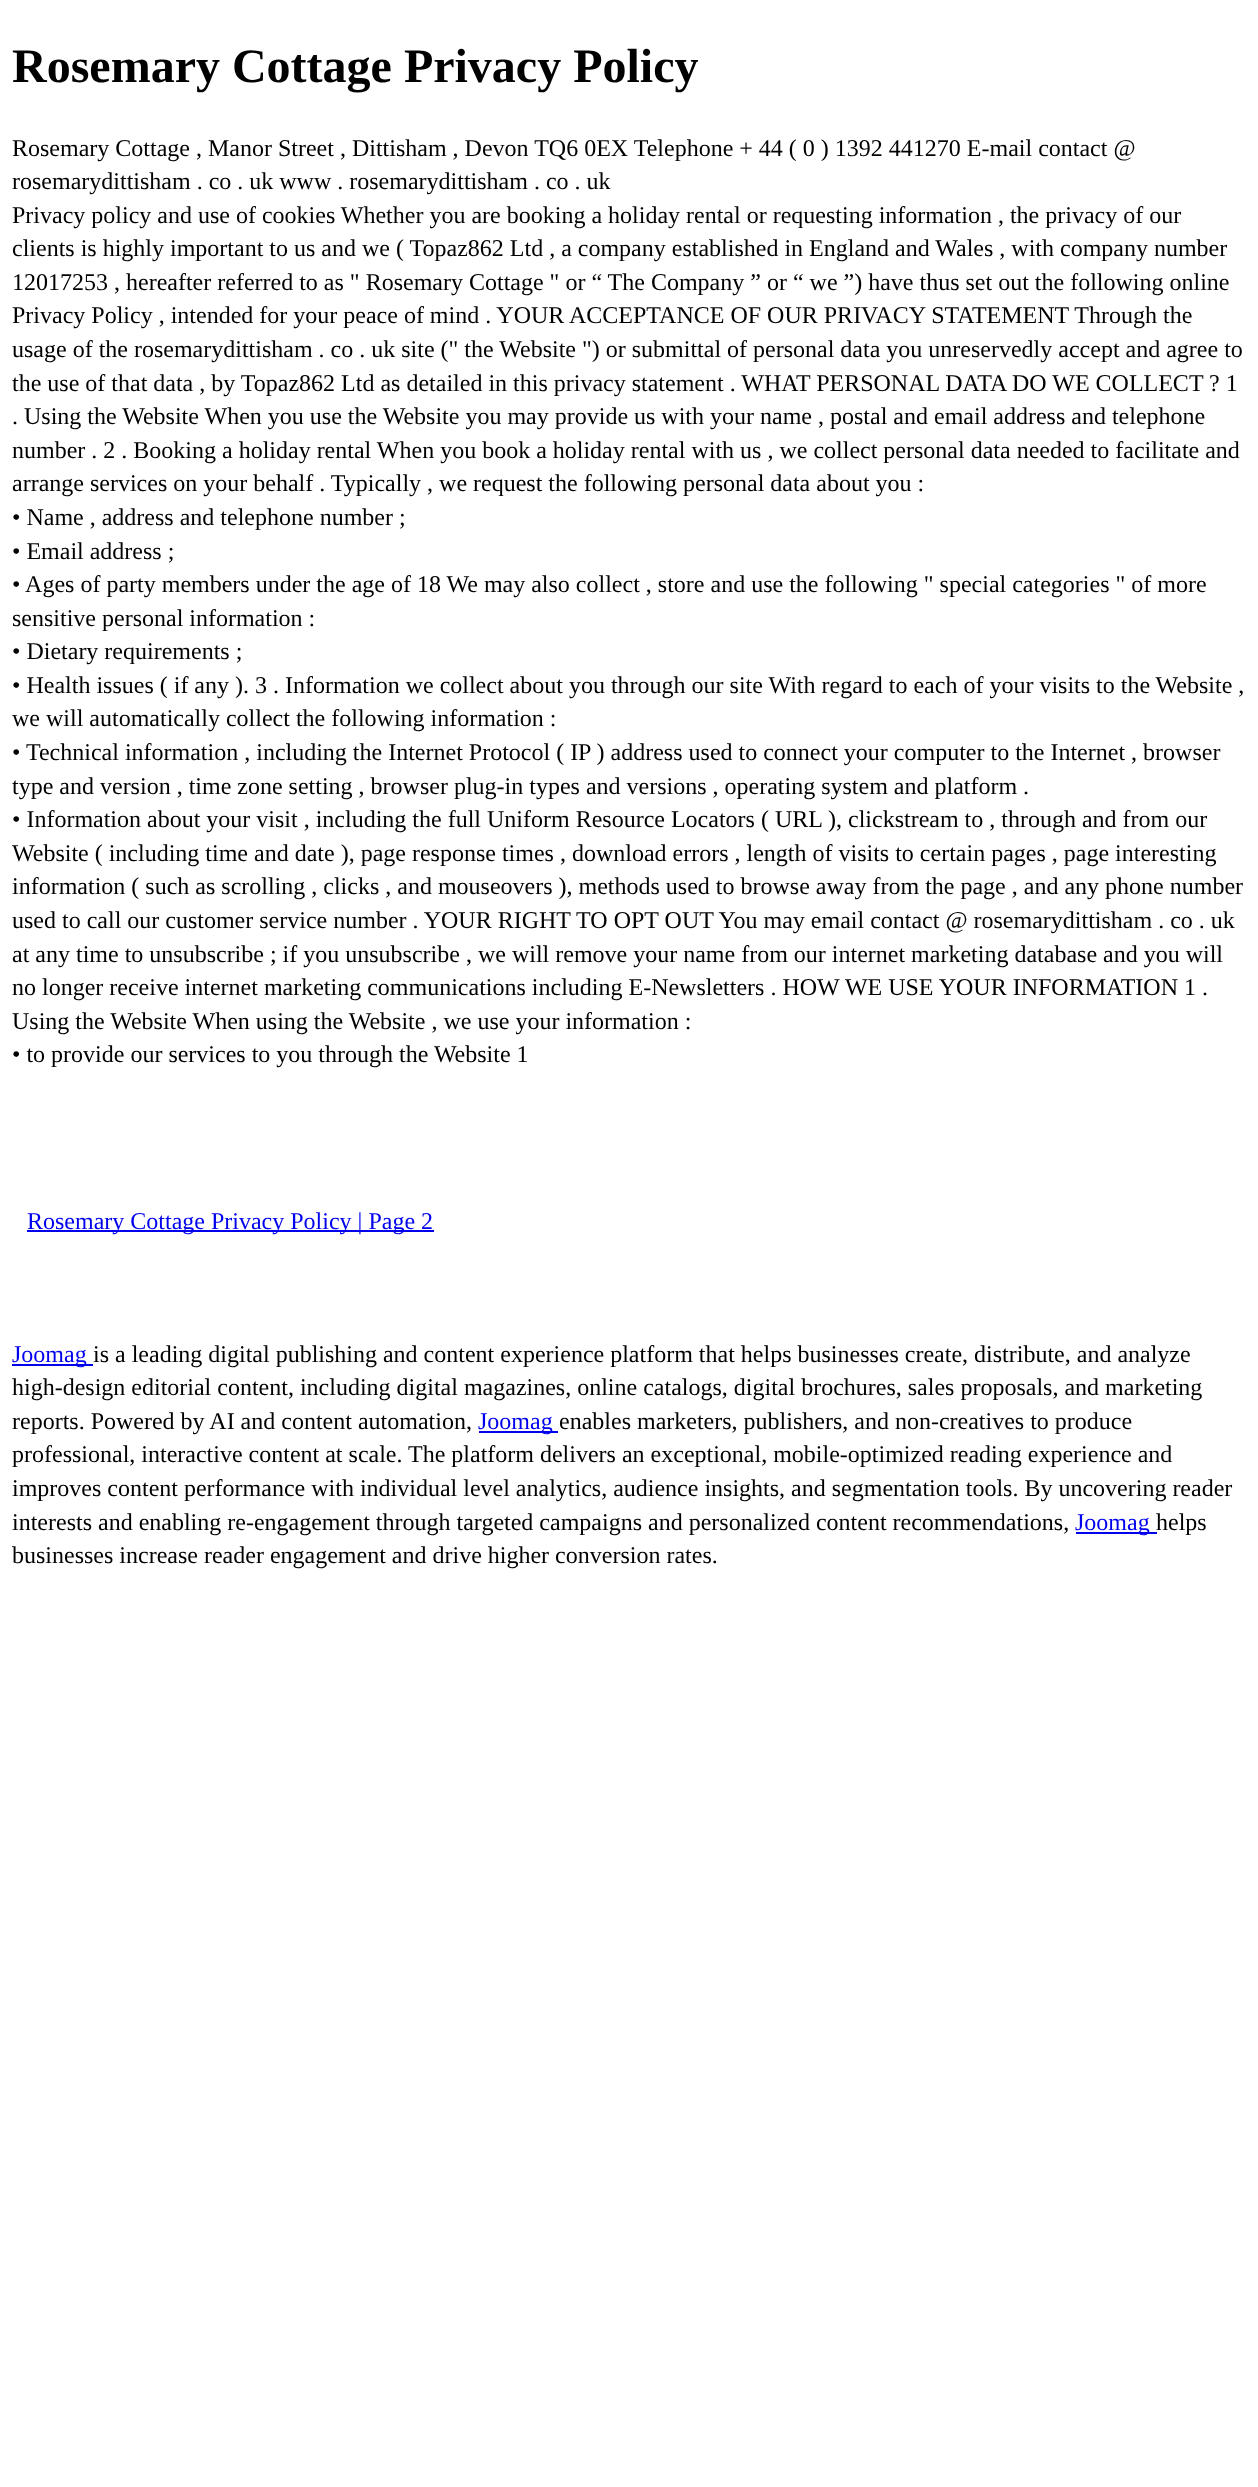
<svg xmlns="http://www.w3.org/2000/svg" width="1258" height="2487" viewBox="0 0 1258 2487">
  <rect width="100%" height="100%" fill="#fff"/>
  <path d="M27 1230h407v2H27z" fill="#00e"/>
  <path d="M12 1364h81v2H12z" fill="#00e"/>
  <path d="M479 1431h79v2H479z" fill="#00e"/>
  <path d="M1076 1532h81v2H1076z" fill="#00e"/>
  <text x="12" y="82" font-family="Liberation Serif" font-size="48" font-weight="bold" fill="#000">Rosemary Cottage Privacy Policy</text>
  <g font-family="Liberation Serif" font-size="24" fill="#000">
    <text x="12" y="156">Rosemary Cottage , Manor Street , Dittisham , Devon TQ6 0EX Telephone + 44 ( 0 ) 1392 441270 E-mail contact @</text>
    <text x="12" y="189">rosemarydittisham . co . uk www . rosemarydittisham . co . uk</text>
    <text x="12" y="223">Privacy policy and use of cookies Whether you are booking a holiday rental or requesting information , the privacy of our</text>
    <text x="12" y="256">clients is highly important to us and we ( Topaz862 Ltd , a company established in England and Wales , with company number</text>
    <text x="12" y="290">12017253 , hereafter referred to as " Rosemary Cottage " or “ The Company ” or “ we ”) have thus set out the following online</text>
    <text x="12" y="323">Privacy Policy , intended for your peace of mind . YOUR ACCEPTANCE OF OUR PRIVACY STATEMENT Through the</text>
    <text x="12" y="357">usage of the rosemarydittisham . co . uk site (" the Website ") or submittal of personal data you unreservedly accept and agree to</text>
    <text x="12" y="391">the use of that data , by Topaz862 Ltd as detailed in this privacy statement . WHAT PERSONAL DATA DO WE COLLECT ? 1</text>
    <text x="12" y="424">. Using the Website When you use the Website you may provide us with your name , postal and email address and telephone</text>
    <text x="12" y="458">number . 2 . Booking a holiday rental When you book a holiday rental with us , we collect personal data needed to facilitate and</text>
    <text x="12" y="491">arrange services on your behalf . Typically , we request the following personal data about you :</text>
    <text x="12" y="525">• Name , address and telephone number ;</text>
    <text x="12" y="559">• Email address ;</text>
    <text x="12" y="592">• Ages of party members under the age of 18 We may also collect , store and use the following " special categories " of more</text>
    <text x="12" y="626">sensitive personal information :</text>
    <text x="12" y="659">• Dietary requirements ;</text>
    <text x="12" y="693">• Health issues ( if any ). 3 . Information we collect about you through our site With regard to each of your visits to the Website ,</text>
    <text x="12" y="726">we will automatically collect the following information :</text>
    <text x="12" y="760">• Technical information , including the Internet Protocol ( IP ) address used to connect your computer to the Internet , browser</text>
    <text x="12" y="794">type and version , time zone setting , browser plug-in types and versions , operating system and platform .</text>
    <text x="12" y="827">• Information about your visit , including the full Uniform Resource Locators ( URL ), clickstream to , through and from our</text>
    <text x="12" y="861">Website ( including time and date ), page response times , download errors , length of visits to certain pages , page interesting</text>
    <text x="12" y="894">information ( such as scrolling , clicks , and mouseovers ), methods used to browse away from the page , and any phone number</text>
    <text x="12" y="928">used to call our customer service number . YOUR RIGHT TO OPT OUT You may email contact @ rosemarydittisham . co . uk</text>
    <text x="12" y="962">at any time to unsubscribe ; if you unsubscribe , we will remove your name from our internet marketing database and you will</text>
    <text x="12" y="995">no longer receive internet marketing communications including E-Newsletters . HOW WE USE YOUR INFORMATION 1 .</text>
    <text x="12" y="1029">Using the Website When using the Website , we use your information :</text>
    <text x="12" y="1062">• to provide our services to you through the Website 1</text>
  </g>
  <g font-family="Liberation Serif" font-size="24" fill="#00e">
    <text x="27" y="1229">Rosemary Cottage Privacy Policy | Page 2</text>
    <text x="12" y="1362">Joomag</text>
  </g>
  <g font-family="Liberation Serif" font-size="24" fill="#000">
    <text x="93" y="1362">is a leading digital publishing and content experience platform that helps businesses create, distribute, and analyze</text>
    <text x="12" y="1395">high-design editorial content, including digital magazines, online catalogs, digital brochures, sales proposals, and marketing</text>
    <text x="12" y="1429">reports. Powered by AI and content automation,</text>
  </g>
  <text x="478" y="1429" font-family="Liberation Serif" font-size="24" fill="#00e">Joomag</text>
  <g font-family="Liberation Serif" font-size="24" fill="#000">
    <text x="559" y="1429">enables marketers, publishers, and non-creatives to produce</text>
    <text x="12" y="1462">professional, interactive content at scale.</text>
    <text x="408" y="1462">The platform delivers an exceptional, mobile-optimized reading experience and</text>
    <text x="12" y="1496">improves content performance with individual level analytics, audience insights, and segmentation tools. By uncovering reader</text>
    <text x="12" y="1530">interests and enabling re-engagement through targeted campaigns and personalized content recommendations,</text>
  </g>
  <text x="1075" y="1530" font-family="Liberation Serif" font-size="24" fill="#00e">Joomag</text>
  <g font-family="Liberation Serif" font-size="24" fill="#000">
    <text x="1156" y="1530">helps</text>
    <text x="12" y="1563">businesses increase reader engagement and drive higher conversion rates.</text>
  </g>
</svg>
